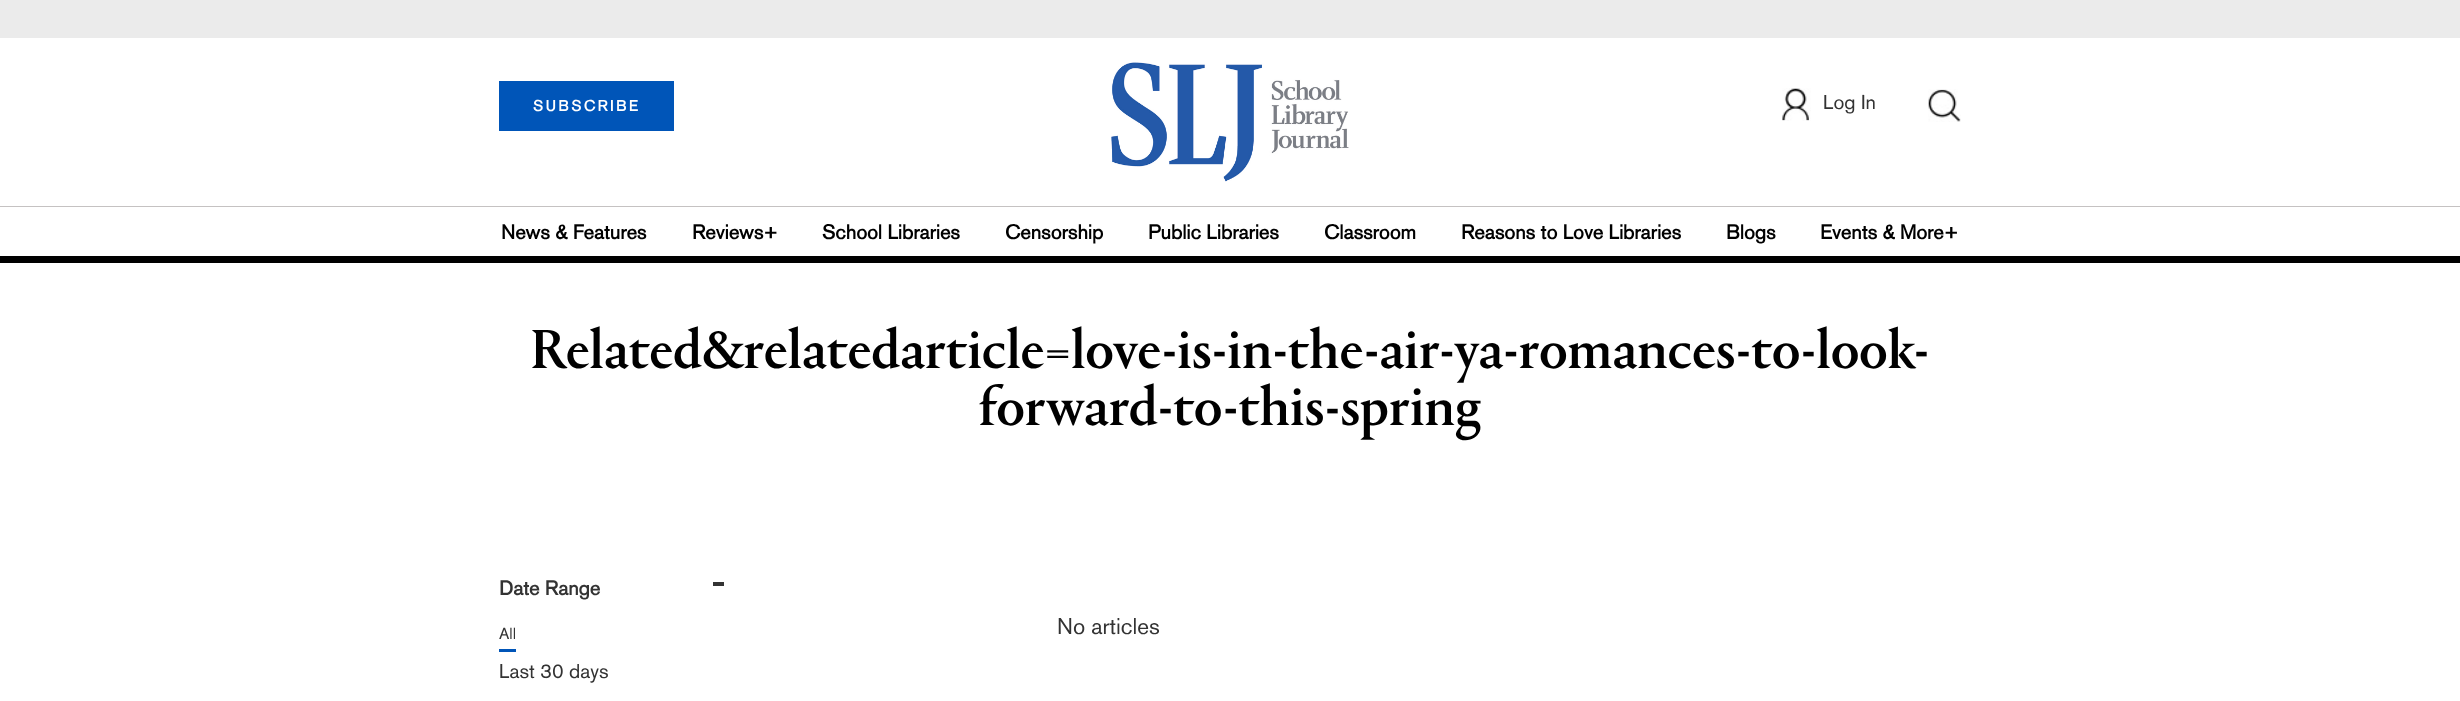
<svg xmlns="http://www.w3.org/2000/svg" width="2460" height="701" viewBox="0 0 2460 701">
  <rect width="100%" height="100%" fill="#fff"/>
  <path d="M0 0h2460v38H0z" fill="#ebebeb"/>
  <path d="M499 81h175v50H499z" fill="#0055b8"/>
  <image x="1111" y="62" width="238" height="120" href="img/1.png"/>
  <image x="1782" y="88" width="29" height="33" href="img/2.png"/>
  <image x="1928" y="89" width="33" height="33" href="img/3.png"/>
  <path d="M0 206h2460v1H0z" fill="#c5c2c2"/>
  <path d="M0 256h2460v7H0z" fill="#000"/>
  <path d="M713 582h11v4H713z" fill="#333"/>
  <path d="M499 649h17v3H499z" fill="#0055b8"/>
  <text x="533" y="111" font-family="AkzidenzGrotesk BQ" font-size="15" font-weight="bold" letter-spacing="2.5" fill="#fff">SUBSCRIBE</text>
  <text x="1823" y="109" font-family="AkzidenzGrotesk BQ" font-size="20" font-weight="500" fill="#333">Log In</text>
  <g font-family="AkzidenzGrotesk BQ" font-size="20" font-weight="bold" fill="#000">
    <text x="501" y="239">News &amp; Features</text>
    <text x="692" y="239">Reviews+</text>
    <text x="822" y="239">School Libraries</text>
    <text x="1005" y="239">Censorship</text>
    <text x="1148" y="239">Public Libraries</text>
    <text x="1324" y="239">Classroom</text>
    <text x="1461" y="239">Reasons to Love Libraries</text>
    <text x="1726" y="239">Blogs</text>
    <text x="1820" y="239">Events &amp; More+</text>
  </g>
  <g font-family="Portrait" font-size="57.5" font-weight="500" fill="#000">
    <text x="530" y="368">Related&amp;relatedarticle=love-is-in-the-air-ya-romances-to-look-</text>
    <text x="979" y="425">forward-to-this-spring</text>
  </g>
  <text x="499" y="595" font-family="AkzidenzGrotesk BQ" font-size="20" font-weight="bold" fill="#333">Date Range</text>
  <text x="499" y="639" font-family="AkzidenzGrotesk BQ" font-size="16" font-weight="500" fill="#333">All</text>
  <text x="499" y="678" font-family="AkzidenzGrotesk BQ" font-size="20" font-weight="500" fill="#333">Last 30 days</text>
  <text x="1057" y="634" font-family="AkzidenzGrotesk BQ" font-size="22.5" font-weight="500" fill="#333">No articles</text>
</svg>
